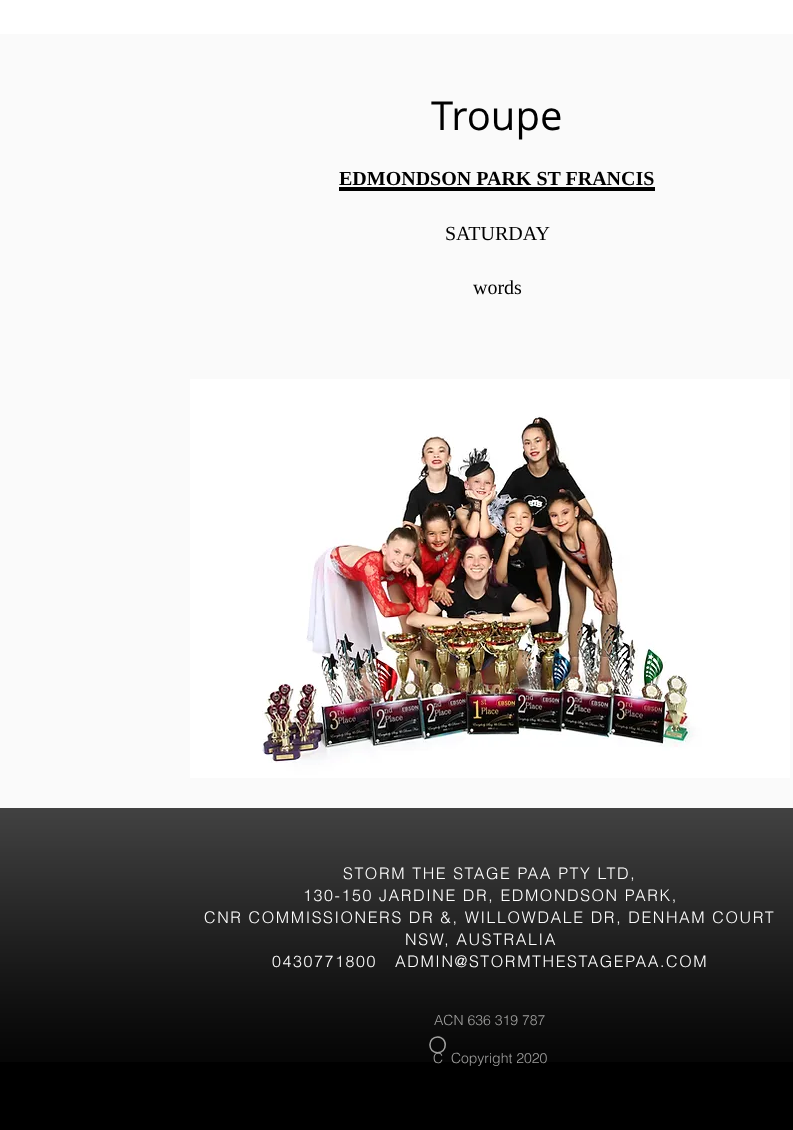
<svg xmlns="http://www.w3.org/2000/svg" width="793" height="1130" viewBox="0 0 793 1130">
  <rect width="100%" height="100%" fill="#fff"/>
  <path d="M0 34h793v774H0z" fill="#fafafa"/>
  <path d="M339 187h316v4H339z" fill="#000"/>
  <image x="190" y="379" width="600" height="399" href="img/1.png"/>
  <path d="M0 808h793v322H0z" fill="#000"/>
  <image x="0" y="808" width="793" height="254" href="img/2.png"/>
  <text x="431" y="130" font-family="Open Sans" font-size="40" fill="#000">Troupe</text>
  <text x="339" y="185" font-family="Liberation Serif" font-size="20" font-weight="bold" fill="#000">EDMONDSON PARK ST FRANCIS</text>
  <g font-family="Liberation Serif" font-size="20" fill="#000">
    <text x="445" y="240">SATURDAY</text>
    <text x="473" y="294">words</text>
  </g>
  <g font-family="helvetica" font-size="16" font-weight="300" letter-spacing="1.6" fill="#fff">
    <text x="343" y="879">STORM THE STAGE PAA PTY LTD,</text>
    <text x="303" y="901">130-150 JARDINE DR, EDMONDSON PARK,</text>
    <text x="204" y="923">CNR COMMISSIONERS DR &amp;, WILLOWDALE DR, DENHAM COURT</text>
    <text x="405" y="945">NSW, AUSTRALIA</text>
    <text x="272" y="967">0430771800</text>
    <text x="395" y="967">ADMIN@STORMTHESTAGEPAA.COM</text>
  </g>
  <g font-family="helvetica" font-size="14" font-weight="300" fill="#a0a09f">
    <text x="434" y="1025">ACN 636 319 787</text>
    <text x="433" y="1063" xml:space="preserve">C  Copyright 2020</text>
  </g>
  <text x="428" y="1053" font-family="'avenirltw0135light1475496'" font-size="23" font-weight="300" letter-spacing="1" fill="#a0a09f">O</text>
</svg>
